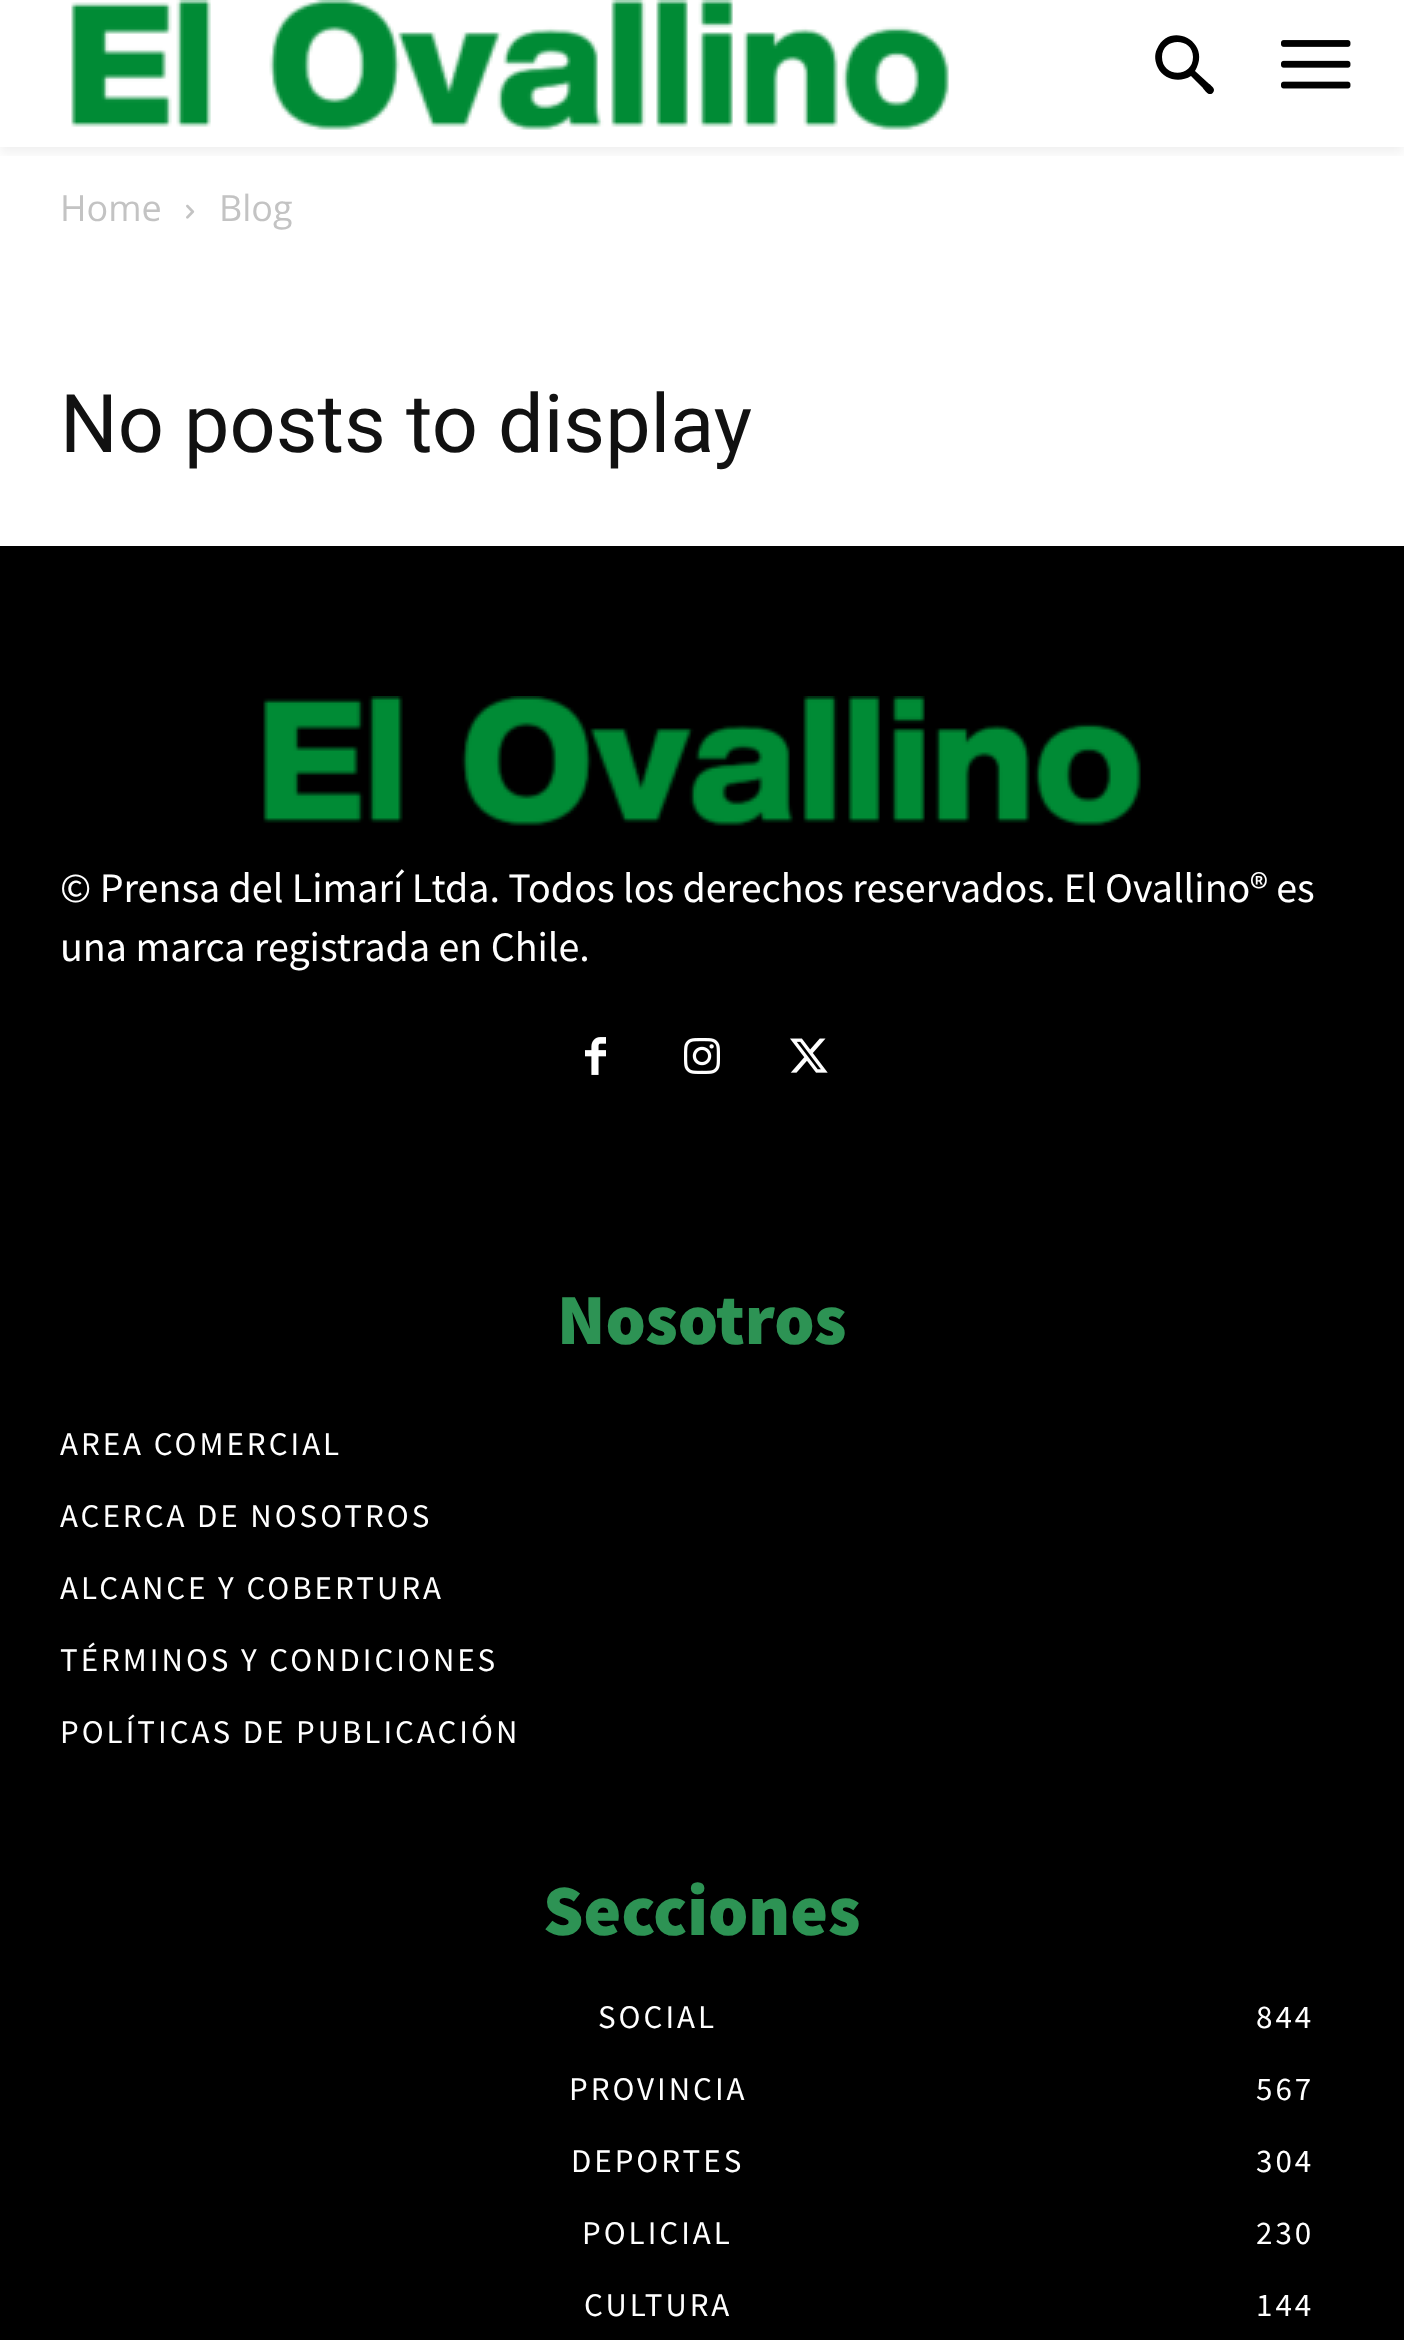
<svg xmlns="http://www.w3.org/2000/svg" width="1404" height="2340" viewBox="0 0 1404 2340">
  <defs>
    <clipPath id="clip1"><path d="M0 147h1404v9H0z"/></clipPath>
  </defs>
  <rect width="100%" height="100%" fill="#fff"/>
  <image x="71" y="0" width="878" height="130" href="img/1.png"/>
  <path d="M1193 57C1193 78 1162 78 1162 57C1162 37 1193 37 1193 57ZM1214 90C1214 87 1209 84 1207 82L1195 71C1213 41 1169 20 1157 49C1154 55 1155 62 1158 68C1164 80 1180 83 1191 76L1202 87C1204 89 1207 95 1211 94C1212 94 1214 92 1214 90Z" fill="#000"/>
  <image x="1281" y="40" width="70" height="49" href="img/2.png"/>
  <g clip-path="url(#clip1)">
    <path d="M0 6h1404v147H0z" fill="#0000000f" filter="blur(6px)"/>
  </g>
  <image x="186" y="204" width="9" height="15" href="img/3.png"/>
  <path d="M0 546h1404v1794H0z" fill="#000"/>
  <image x="263" y="696" width="878" height="130" href="img/4.png"/>
  <image x="585" y="1037" width="21" height="38" href="img/5.png"/>
  <image x="684" y="1038" width="36" height="36" href="img/6.png"/>
  <image x="790" y="1038" width="38" height="35" href="img/7.png"/>
  <g font-family="Open Sans" font-size="36" fill="#c3c3c3">
    <text x="60" y="221">Home</text>
    <text x="219" y="221">Blog</text>
  </g>
  <text x="60" y="452" font-family="Roboto" font-size="81" fill="#111">No posts to display</text>
  <g font-family="Source Sans Pro" font-size="42" fill="#fff">
    <text x="60" y="902">© Prensa del Limarí Ltda. Todos los derechos reservados. El Ovallino® es</text>
    <text x="60" y="961">una marca registrada en Chile.</text>
  </g>
  <text x="557" y="1344" font-family="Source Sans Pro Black" font-size="72" font-weight="900" fill="#2d9354">Nosotros</text>
  <g font-family="Source Sans Pro" font-size="33" letter-spacing="3" fill="#fff">
    <text x="60" y="1455">AREA COMERCIAL</text>
    <text x="60" y="1527">ACERCA DE NOSOTROS</text>
    <text x="60" y="1599">ALCANCE Y COBERTURA</text>
    <text x="60" y="1671">TÉRMINOS Y CONDICIONES</text>
    <text x="60" y="1743">POLÍTICAS DE PUBLICACIÓN</text>
  </g>
  <text x="543" y="1935" font-family="Source Sans Pro Black" font-size="72" font-weight="900" fill="#2d9354">Secciones</text>
  <g font-family="Source Sans Pro" font-size="33" letter-spacing="3" fill="#fff">
    <text x="598" y="2028">SOCIAL</text>
    <text x="1256" y="2028">844</text>
    <text x="569" y="2100">PROVINCIA</text>
    <text x="1256" y="2100">567</text>
    <text x="571" y="2172">DEPORTES</text>
    <text x="1256" y="2172">304</text>
    <text x="582" y="2244">POLICIAL</text>
    <text x="1256" y="2244">230</text>
    <text x="584" y="2316">CULTURA</text>
    <text x="1256" y="2316">144</text>
  </g>
</svg>
